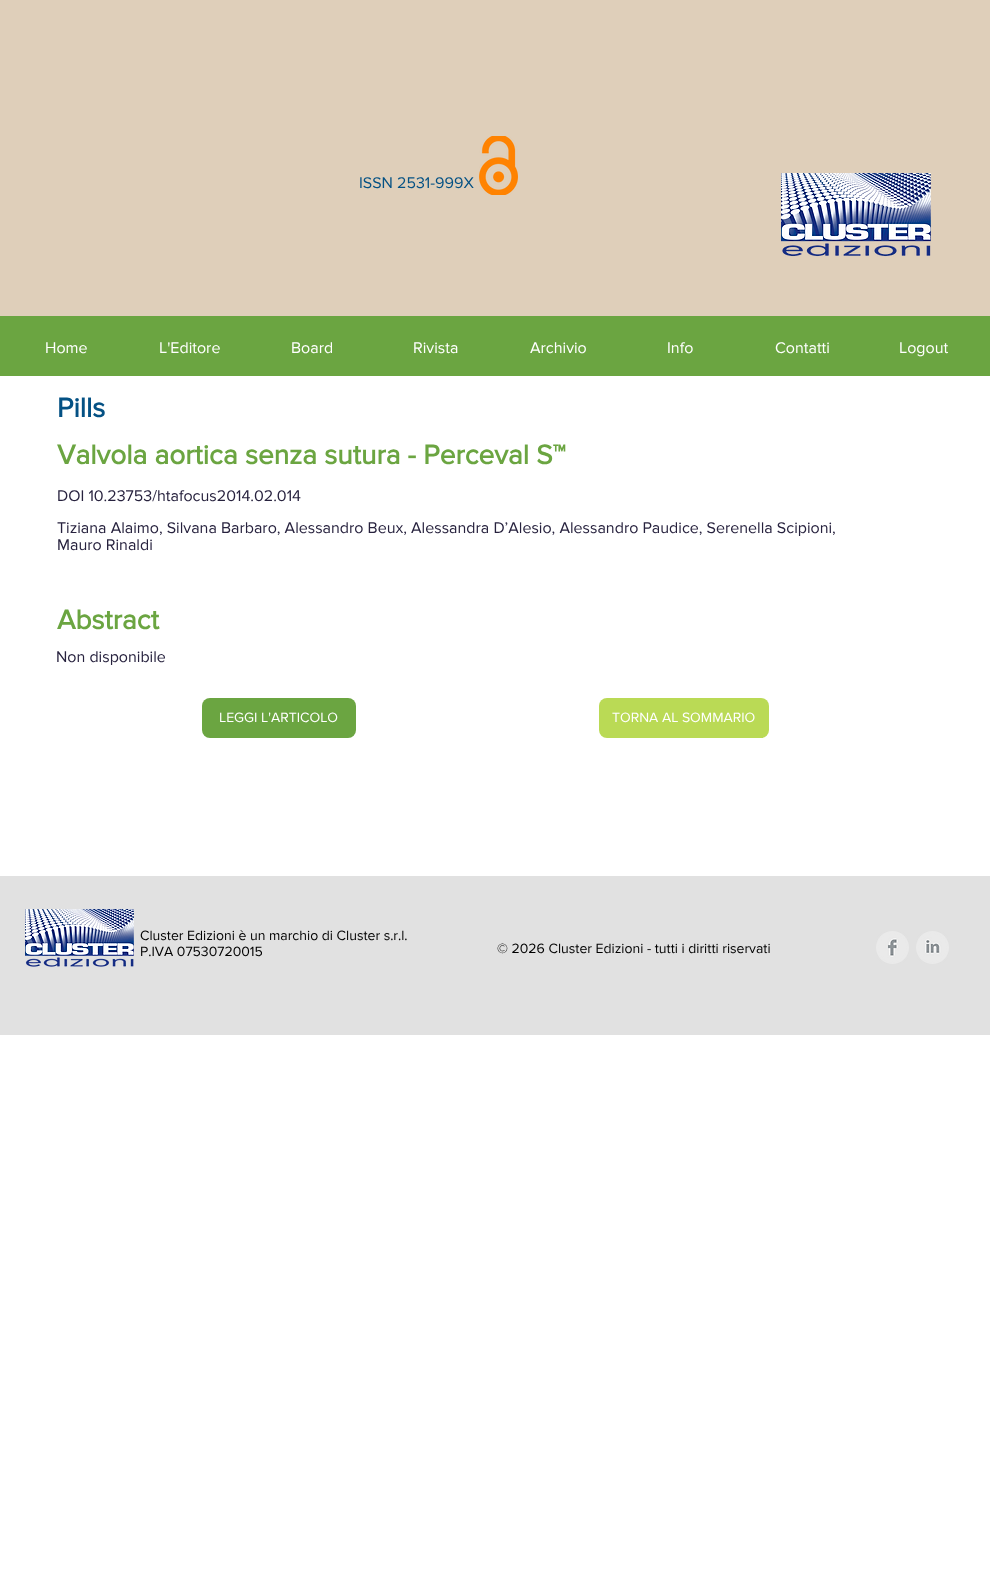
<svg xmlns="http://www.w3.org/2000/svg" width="990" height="1582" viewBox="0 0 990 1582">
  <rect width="100%" height="100%" fill="#fff"/>
  <path d="M0 0h990v316H0z" fill="#dfcfba"/>
  <image x="479" y="136" width="39" height="59" href="img/1.png"/>
  <image x="781" y="173" width="150" height="84" href="img/2.png"/>
  <path d="M0 316h990v60H0z" fill="#6ba541"/>
  <rect x="202" y="698" width="154" height="40" rx="8" fill="#6ba541"/>
  <rect x="599" y="698" width="170" height="40" rx="8" fill="#bada55"/>
  <path d="M0 876h990v159H0z" fill="#e1e1e1"/>
  <image x="25" y="909" width="109" height="58" href="img/3.png"/>
  <image x="876" y="931" width="33" height="33" href="img/4.png"/>
  <image x="916" y="931" width="33" height="33" href="img/5.png"/>
  <text x="359" y="188" font-family="'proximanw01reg'" font-size="16" fill="#045184">ISSN 2531-999X</text>
  <g font-family="'proximanw01reg'" font-size="16" fill="#fff">
    <text x="45" y="353">Home</text>
    <text x="159" y="353">L'Editore</text>
    <text x="291" y="353">Board</text>
    <text x="413" y="353">Rivista</text>
    <text x="530" y="353">Archivio</text>
    <text x="667" y="353">Info</text>
    <text x="775" y="353">Contatti</text>
    <text x="899" y="353">Logout</text>
  </g>
  <text x="57" y="417" font-family="'proximanw01reg'" font-size="28" font-weight="bold" fill="#045184">Pills</text>
  <text x="57" y="464" font-family="'proximanw01reg'" font-size="28" font-weight="bold" fill="#6ba541">Valvola aortica senza sutura - Perceval S™</text>
  <g font-family="'proximanw01reg'" font-size="16" fill="#27223e">
    <text x="57" y="501">DOI 10.23753/htafocus2014.02.014</text>
    <text x="57" y="533">Tiziana Alaimo, Silvana Barbaro, Alessandro Beux, Alessandra D’Alesio, Alessandro Paudice, Serenella Scipioni,</text>
    <text x="57" y="550">Mauro Rinaldi</text>
  </g>
  <text x="57" y="629" font-family="'proximanw01reg'" font-size="28" font-weight="bold" fill="#6ba541">Abstract</text>
  <text x="56" y="662" font-family="'proximanw01reg'" font-size="16" fill="#27223e">Non disponibile</text>
  <g font-family="'proximanw01reg'" font-size="14" fill="#fff">
    <text x="219" y="722">LEGGI L'ARTICOLO</text>
    <text x="612" y="722">TORNA AL SOMMARIO</text>
  </g>
  <g font-family="'proximanw01reg'" font-size="14" fill="#000">
    <text x="140" y="940">Cluster Edizioni è un marchio di Cluster s.r.l.</text>
    <text x="140" y="956">P.IVA 07530720015</text>
    <text x="497" y="953">© 2026 Cluster Edizioni - tutti i diritti riservati</text>
  </g>
</svg>
